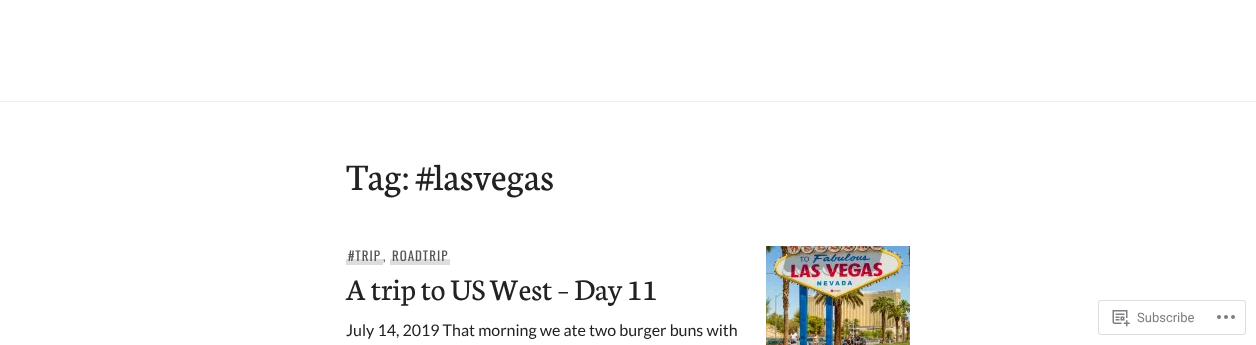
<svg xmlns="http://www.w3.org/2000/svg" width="1256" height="345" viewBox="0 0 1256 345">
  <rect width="100%" height="100%" fill="#fff"/>
  <path d="M0 101h1256v1H0z" fill="#eee"/>
  <path d="M346 259h37v6H346z" fill="#ddd"/>
  <path d="M390 259h60v6H390z" fill="#ddd"/>
  <image x="766" y="246" width="144" height="99" href="img/1.png"/>
  <rect x="1098.5" y="300.5" width="147" height="34" rx="2.5" fill="none" stroke="#dddddf"/>
  <image x="1112" y="310" width="18" height="17" href="img/2.png"/>
  <image x="1217" y="315" width="18" height="4" href="img/3.png"/>
  <text x="346" y="190" font-family="Neuton" font-size="40" fill="#222">Tag: #lasvegas</text>
  <g font-family="Oswald" font-size="13" letter-spacing="1" fill="#555">
    <text x="348" y="261">#TRIP</text>
    <text x="383" y="261">,</text>
    <text x="392" y="261">ROADTRIP</text>
  </g>
  <text x="346" y="300" font-family="Neuton" font-size="32" fill="#222">A trip to US West – Day 11</text>
  <text x="346" y="336" font-family="Lato" font-size="16" fill="#222">July 14, 2019 That morning we ate two burger buns with</text>
  <text x="1137" y="322" font-family="Roboto" font-size="13" fill="#7b7f85">Subscribe</text>
</svg>
